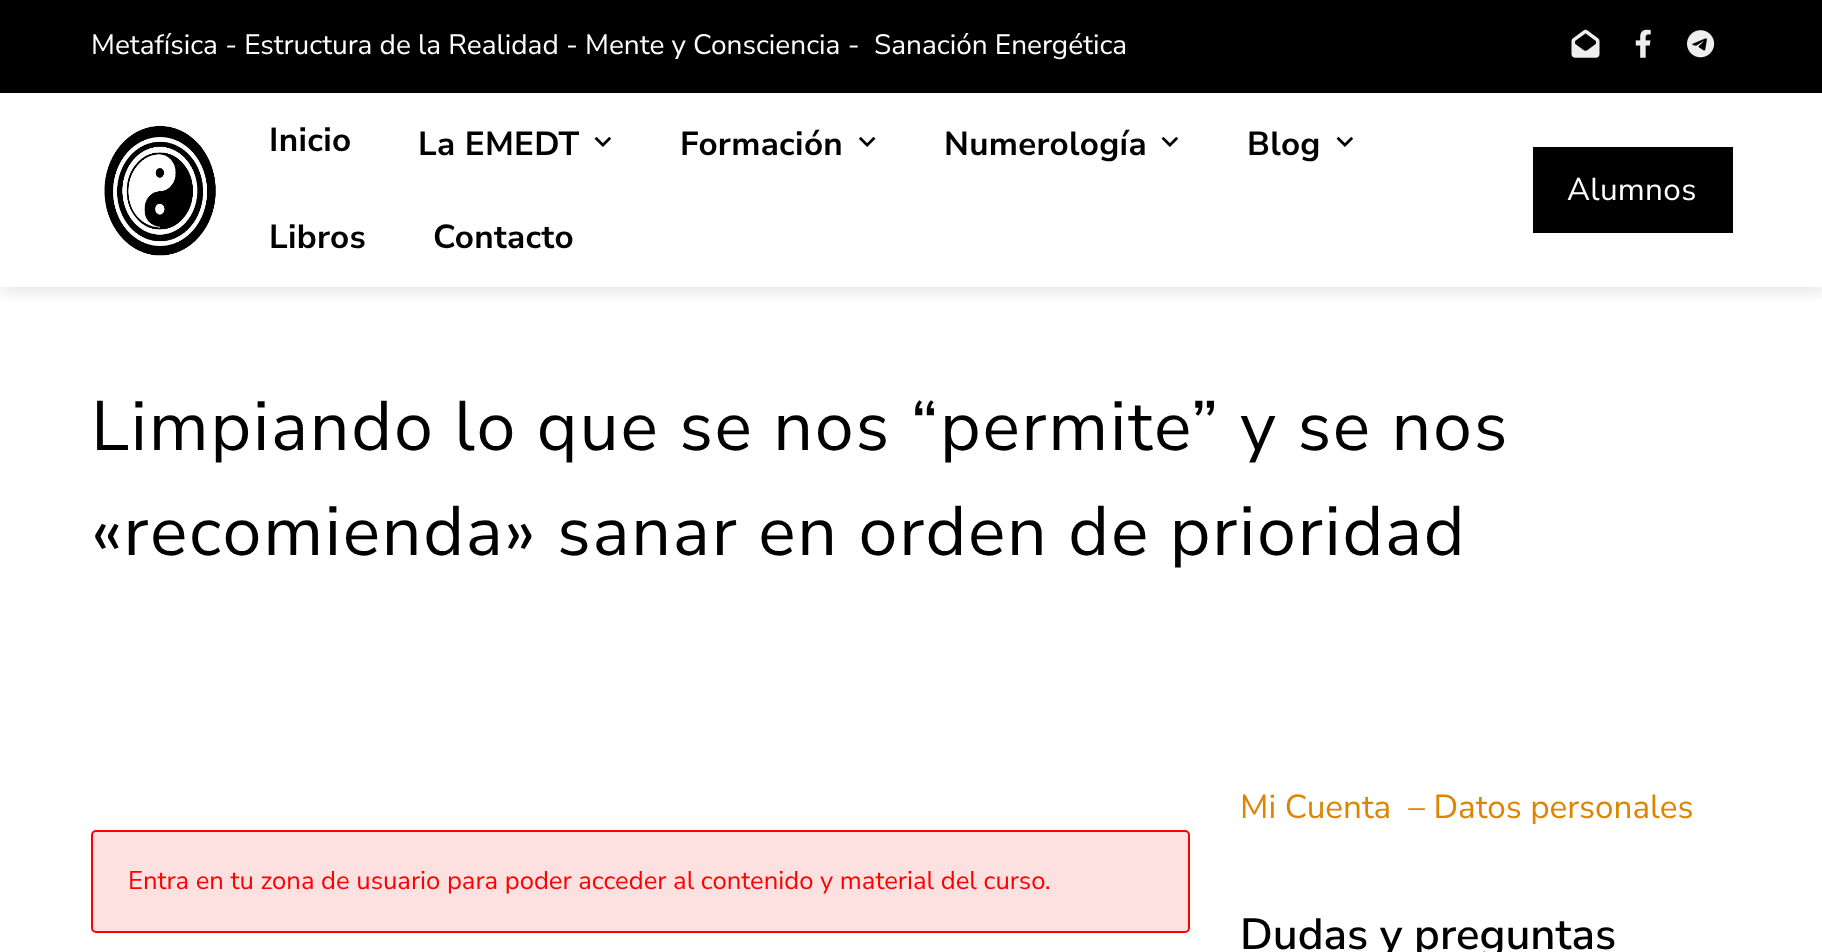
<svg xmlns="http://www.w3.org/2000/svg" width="1822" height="952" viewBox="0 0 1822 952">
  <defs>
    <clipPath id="clip1"><path d="M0 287h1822v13H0z"/></clipPath>
  </defs>
  <rect width="100%" height="100%" fill="#fff"/>
  <g clip-path="url(#clip1)">
    <path d="M0 98h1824v194H0z" fill="#0000001a" filter="blur(9px)"/>
  </g>
  <path d="M0 0h1822v93H0z" fill="#000"/>
  <image x="1571" y="29" width="29" height="29" href="img/1.png"/>
  <image x="1635" y="29" width="16" height="29" href="img/2.png"/>
  <image x="1687" y="30" width="28" height="28" href="img/3.png"/>
  <image x="104" y="125" width="112" height="131" href="img/4.png"/>
  <image x="594" y="136" width="18" height="11" href="img/5.png"/>
  <image x="858" y="136" width="18" height="11" href="img/6.png"/>
  <image x="1161" y="136" width="18" height="11" href="img/5.png"/>
  <image x="1336" y="136" width="18" height="11" href="img/5.png"/>
  <path d="M1533 147h200v86H1533z" fill="#000"/>
  <rect x="92" y="831" width="1097" height="101" rx="4" fill="#fde0e0" stroke="#f00" stroke-width="2"/>
  <text x="91" y="54" font-family="Nunito Sans" font-size="28" fill="#fff" xml:space="preserve">Metafísica - Estructura de la Realidad - Mente y Consciencia -  Sanación Energética</text>
  <g font-family="Nunito Sans" font-size="33.25" font-weight="bold" letter-spacing="0.3" fill="#000">
    <text x="269" y="151">Inicio</text>
    <text x="418" y="155">La EMEDT</text>
    <text x="680" y="155">Formación</text>
    <text x="944" y="155">Numerología</text>
    <text x="1247" y="155">Blog</text>
    <text x="269" y="248">Libros</text>
    <text x="433" y="248">Contacto</text>
  </g>
  <text x="1567" y="200" font-family="Nunito Sans" font-size="31.5" letter-spacing="0.3" fill="#fff">Alumnos</text>
  <g font-family="Nunito Sans" font-size="70" letter-spacing="1.75" fill="#000">
    <text x="91" y="450">Limpiando lo que se nos “permite” y se nos</text>
    <text x="91" y="555">«recomienda» sanar en orden de prioridad</text>
  </g>
  <text x="128" y="889" font-family="Nunito Sans" font-size="25.65" fill="#f00">Entra en tu zona de usuario para poder acceder al contenido y material del curso.</text>
  <text x="1240" y="818" font-family="Nunito Sans" font-size="33.25" fill="#dd8500" xml:space="preserve">Mi Cuenta  – Datos personales</text>
  <text x="1240" y="949" font-family="Nunito Sans" font-size="43.75" font-weight="600" fill="#000">Dudas y preguntas</text>
</svg>
